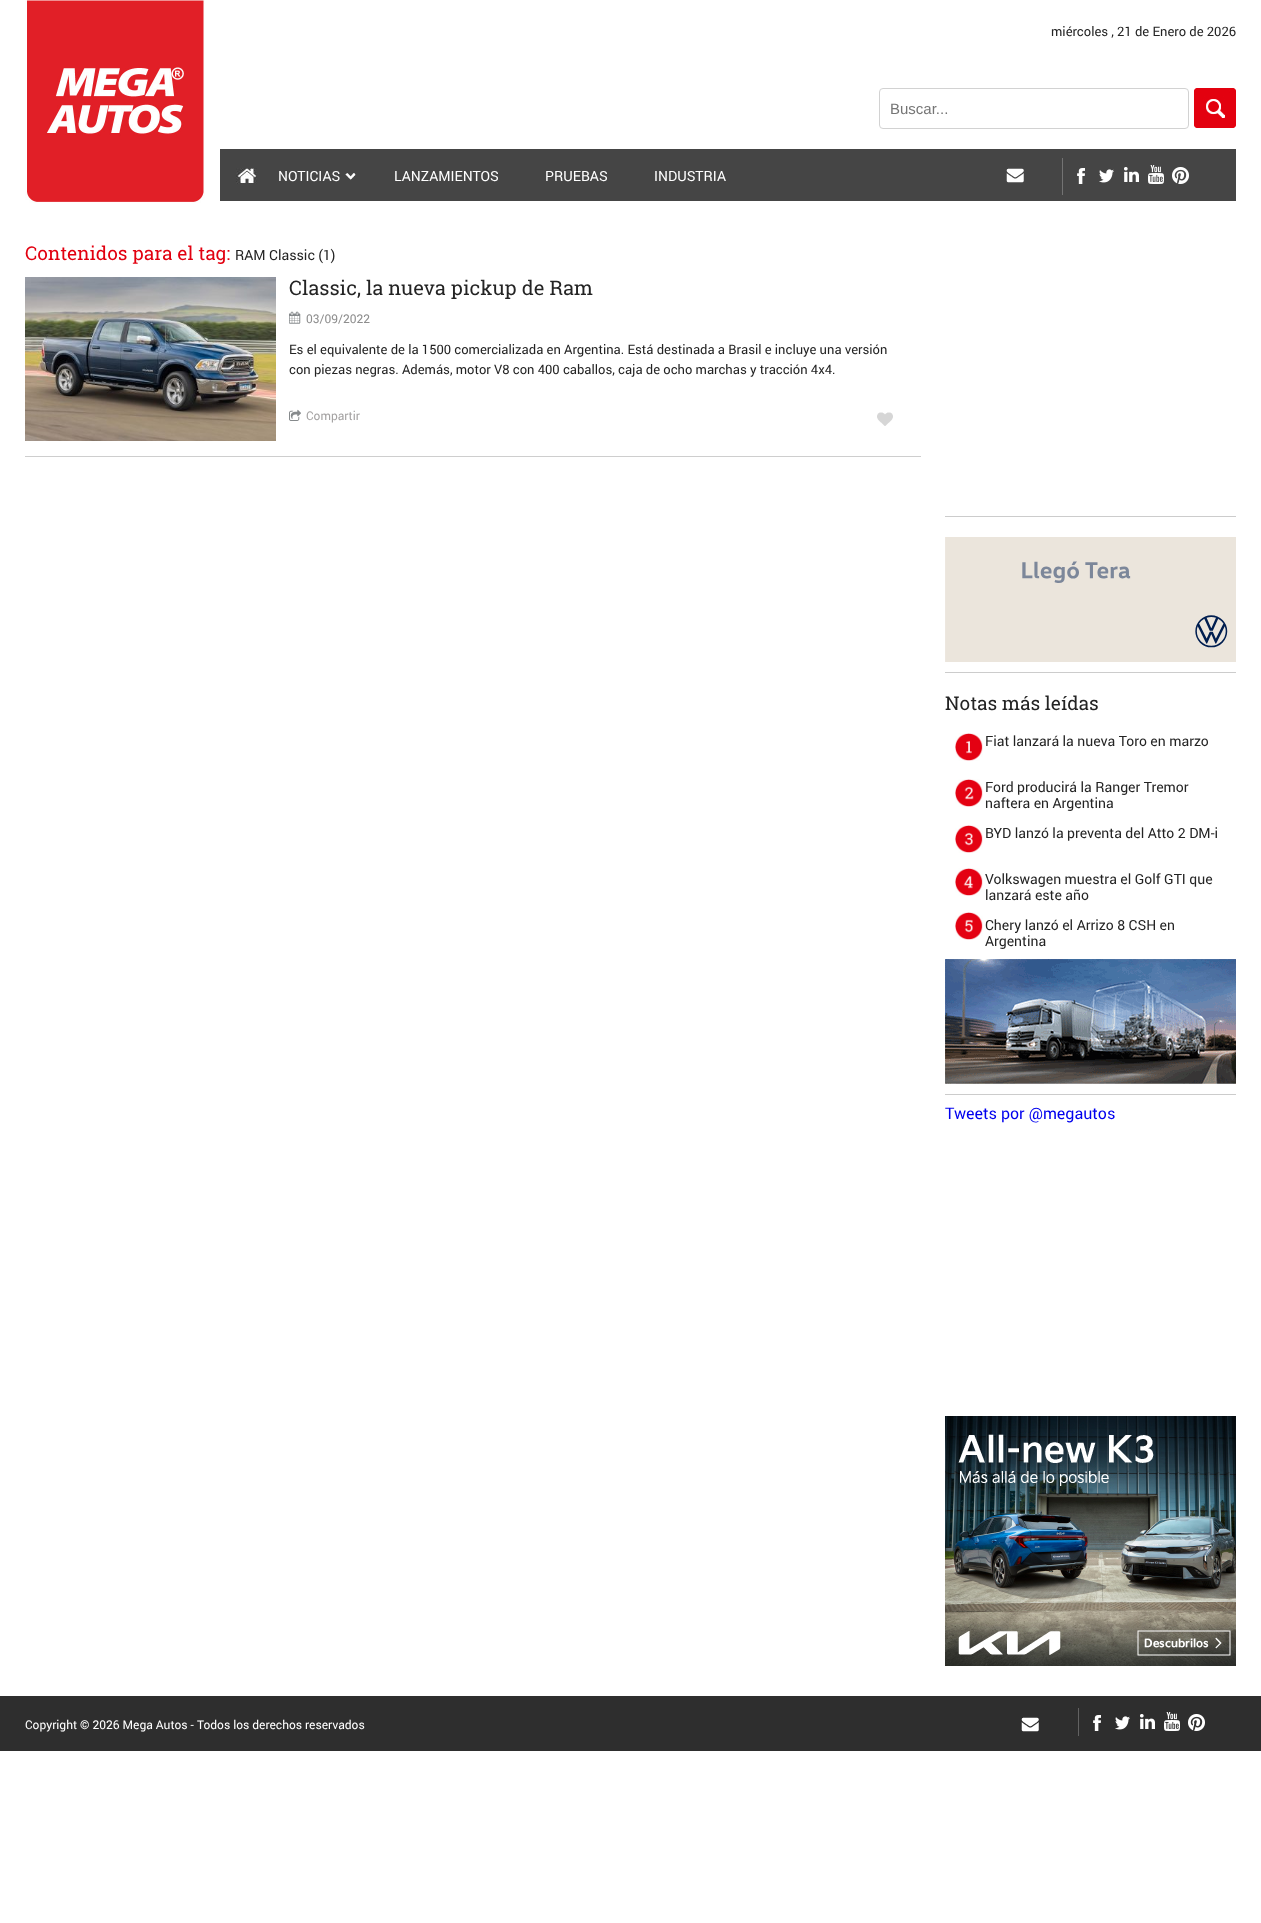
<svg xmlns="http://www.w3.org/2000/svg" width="1261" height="1923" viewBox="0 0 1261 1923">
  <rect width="100%" height="100%" fill="#fff"/>
  <image x="25" y="0" width="180" height="203" href="img/1.png"/>
  <rect x="879.5" y="88.5" width="309" height="40" rx="3.5" fill="none" stroke="#d2d2d2"/>
  <image x="1194" y="88" width="42" height="40" href="img/2.png"/>
  <path d="M220 149h1016v52H220z" fill="#454545"/>
  <image x="236" y="168" width="21" height="16" href="img/3.png"/>
  <image x="345" y="173" width="11" height="7" href="img/4.png"/>
  <path d="M1062 158h1v37H1062z" fill="#737373"/>
  <image x="1006" y="168" width="18" height="15" href="img/5.png"/>
  <image x="1077" y="168" width="8" height="16" href="img/6.png"/>
  <image x="1099" y="169" width="15" height="14" href="img/7.png"/>
  <image x="1124" y="167" width="15" height="15" href="img/8.png"/>
  <image x="1148" y="165" width="16" height="19" href="img/9.png"/>
  <image x="1172" y="167" width="17" height="17" href="img/10.png"/>
  <path d="M25 456h896v1H25z" fill="#cecece"/>
  <image x="25" y="277" width="251" height="164" href="img/11.png"/>
  <image x="289" y="311" width="12" height="13" href="img/12.png"/>
  <image x="289" y="409" width="12" height="12" href="img/13.png"/>
  <image x="877" y="412" width="16" height="14" href="img/14.png"/>
  <path d="M945 516h291v1H945z" fill="#ccc"/>
  <path d="M945 672h291v1H945z" fill="#ccc"/>
  <image x="945" y="537" width="291" height="125" href="img/15.png"/>
  <path d="M945 1094h291v1H945z" fill="#ccc"/>
  <image x="955" y="733" width="28" height="28" href="img/16.png"/>
  <image x="955" y="779" width="28" height="28" href="img/17.png"/>
  <image x="955" y="825" width="28" height="28" href="img/18.png"/>
  <image x="955" y="868" width="28" height="28" href="img/19.png"/>
  <image x="955" y="912" width="28" height="28" href="img/20.png"/>
  <image x="945" y="959" width="291" height="125" href="img/21.png"/>
  <image x="945" y="1416" width="291" height="250" href="img/22.png"/>
  <path d="M0 1696h1261v55H0z" fill="#2e2e2e"/>
  <path d="M1078 1708h1v28H1078z" fill="#626262"/>
  <image x="1021" y="1717" width="18" height="15" href="img/23.png"/>
  <image x="1093" y="1715" width="8" height="16" href="img/24.png"/>
  <image x="1115" y="1716" width="15" height="14" href="img/25.png"/>
  <image x="1140" y="1714" width="15" height="15" href="img/26.png"/>
  <image x="1164" y="1712" width="16" height="19" href="img/27.png"/>
  <image x="1188" y="1714" width="17" height="17" href="img/28.png"/>
  <text x="1051" y="36" font-family="Roboto" font-size="13" fill="#242424">miércoles , 21 de Enero de 2026</text>
  <text x="890" y="114" font-family="Liberation Sans" font-size="15" fill="#757575">Buscar...</text>
  <g font-family="Roboto" font-size="14" fill="#fff">
    <text x="278" y="181">NOTICIAS</text>
    <text x="394" y="181">LANZAMIENTOS</text>
    <text x="545" y="181">PRUEBAS</text>
    <text x="654" y="181">INDUSTRIA</text>
  </g>
  <text x="25" y="260" font-family="Roboto Slab" font-size="19" fill="#e20010">Contenidos para el tag:</text>
  <text x="235" y="260" font-family="Roboto" font-size="14" fill="#242424">RAM Classic (1)</text>
  <text x="289" y="295" font-family="Roboto Slab" font-size="20" fill="#242424">Classic, la nueva pickup de Ram</text>
  <text x="306" y="323" font-family="Roboto" font-size="12" fill="#8e8e8e">03/09/2022</text>
  <g font-family="Roboto" font-size="13" fill="#242424">
    <text x="289" y="354">Es el equivalente de la 1500 comercializada en Argentina. Está destinada a Brasil e incluye una versión</text>
    <text x="289" y="374">con piezas negras. Además, motor V8 con 400 caballos, caja de ocho marchas y tracción 4x4.</text>
  </g>
  <text x="306" y="420" font-family="Roboto" font-size="12" fill="#a5a3a3">Compartir</text>
  <text x="945" y="710" font-family="Roboto Slab" font-size="19" fill="#242424">Notas más leídas</text>
  <g font-family="Roboto" font-size="14" fill="#242424">
    <text x="985" y="746">Fiat lanzará la nueva Toro en marzo</text>
    <text x="985" y="792">Ford producirá la Ranger Tremor</text>
    <text x="985" y="808">naftera en Argentina</text>
    <text x="985" y="838">BYD lanzó la preventa del Atto 2 DM-i</text>
    <text x="985" y="884">Volkswagen muestra el Golf GTI que</text>
    <text x="985" y="900">lanzará este año</text>
    <text x="985" y="930">Chery lanzó el Arrizo 8 CSH en</text>
    <text x="985" y="946">Argentina</text>
  </g>
  <text x="945" y="1119" font-family="Roboto" font-size="16" fill="#00e">Tweets por @megautos</text>
  <text x="25" y="1729" font-family="Roboto" font-size="12" fill="#fff">Copyright © 2026 Mega Autos - Todos los derechos reservados</text>
</svg>
